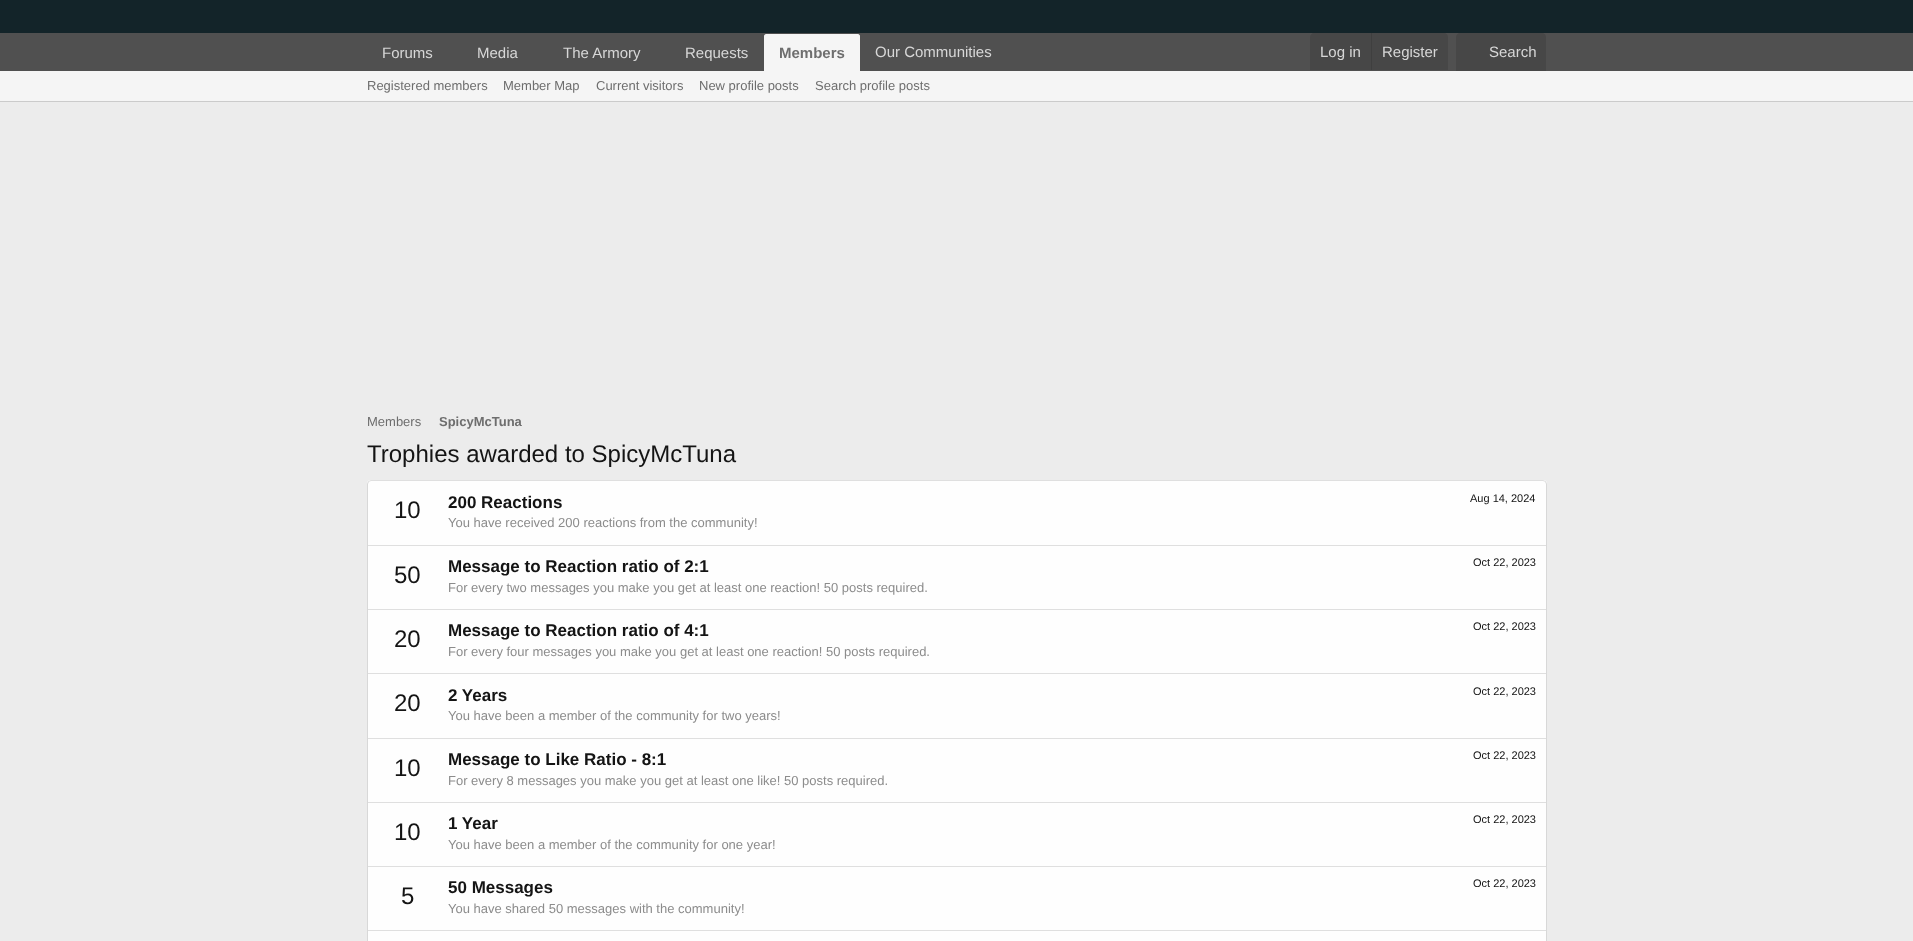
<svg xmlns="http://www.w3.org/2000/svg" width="1913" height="941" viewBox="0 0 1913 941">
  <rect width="100%" height="100%" fill="#ececec"/>
  <path d="M0 0h1913v33H0z" fill="#132429"/>
  <path d="M0 33h1913v38H0z" fill="#505050"/>
  <path d="M766 34H858C859 34 860 35 860 36V71H764V36C764 35 765 34 766 34Z" fill="#f5f5f5"/>
  <path d="M1314 33H1444C1446 33 1448 35 1448 37V70H1310V37C1310 35 1312 33 1314 33Z" fill="#474747"/>
  <path d="M1371 33h1v37H1371z" fill="#3f3f3f"/>
  <path d="M1460 33H1542C1544 33 1546 35 1546 37V71H1456V37C1456 35 1458 33 1460 33Z" fill="#474747"/>
  <path d="M0 71h1913v30H0z" fill="#f5f5f5"/>
  <path d="M0 101h1913v1H0z" fill="#cbcbcb"/>
  <rect x="367" y="480" width="1180" height="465" rx="4" fill="#fefefe"/>
  <path d="M368.5 481.5L371 480.5H1543L1545.5 481.5" fill="none" stroke="#dfdfdf"/>
  <path d="M1545.5 481.5L1546.5 484V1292L1545.5 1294.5" fill="none" stroke="#d8d8d8"/>
  <path d="M368.5 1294.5L367.5 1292V484L368.5 481.5" fill="none" stroke="#d8d8d8"/>
  <path d="M368 545h1178v1H368z" fill="#dfdfdf"/>
  <path d="M368 609h1178v1H368z" fill="#dfdfdf"/>
  <path d="M368 673h1178v1H368z" fill="#dfdfdf"/>
  <path d="M368 738h1178v1H368z" fill="#dfdfdf"/>
  <path d="M368 802h1178v1H368z" fill="#dfdfdf"/>
  <path d="M368 866h1178v1H368z" fill="#dfdfdf"/>
  <path d="M368 930h1178v1H368z" fill="#dfdfdf"/>
  <g font-family="Liberation Sans" font-size="15" fill="#d7d7d7">
    <text x="382" y="58">Forums</text>
    <text x="477" y="58">Media</text>
    <text x="563" y="58">The Armory</text>
    <text x="685" y="58">Requests</text>
  </g>
  <text x="779" y="58" font-family="Liberation Sans" font-size="15" font-weight="bold" fill="#6e6e6e">Members</text>
  <g font-family="Liberation Sans" font-size="15" fill="#d7d7d7">
    <text x="875" y="57">Our Communities</text>
    <text x="1320" y="57">Log in</text>
    <text x="1382" y="57">Register</text>
    <text x="1489" y="57">Search</text>
  </g>
  <g font-family="Liberation Sans" font-size="13" fill="#6e6e6e">
    <text x="367" y="90">Registered members</text>
    <text x="503" y="90">Member Map</text>
    <text x="596" y="90">Current visitors</text>
    <text x="699" y="90">New profile posts</text>
    <text x="815" y="90">Search profile posts</text>
    <text x="367" y="426">Members</text>
  </g>
  <text x="439" y="426" font-family="Liberation Sans" font-size="13" font-weight="bold" fill="#6e6e6e">SpicyMcTuna</text>
  <g font-family="Liberation Sans" font-size="24" fill="#141414">
    <text x="367" y="462">Trophies awarded to SpicyMcTuna</text>
    <text x="394" y="518">10</text>
  </g>
  <text x="448" y="508" font-family="Liberation Sans" font-size="17" font-weight="bold" fill="#141414">200 Reactions</text>
  <text x="1470" y="502" font-family="Liberation Sans" font-size="11" fill="#141414">Aug 14, 2024</text>
  <text x="448" y="527" font-family="Liberation Sans" font-size="13" fill="#8c8c8c">You have received 200 reactions from the community!</text>
  <text x="394" y="583" font-family="Liberation Sans" font-size="24" fill="#141414">50</text>
  <text x="448" y="572" font-family="Liberation Sans" font-size="17" font-weight="bold" fill="#141414">Message to Reaction ratio of 2:1</text>
  <text x="1473" y="566" font-family="Liberation Sans" font-size="11" fill="#141414">Oct 22, 2023</text>
  <text x="448" y="592" font-family="Liberation Sans" font-size="13" fill="#8c8c8c">For every two messages you make you get at least one reaction! 50 posts required.</text>
  <text x="394" y="647" font-family="Liberation Sans" font-size="24" fill="#141414">20</text>
  <text x="448" y="636" font-family="Liberation Sans" font-size="17" font-weight="bold" fill="#141414">Message to Reaction ratio of 4:1</text>
  <text x="1473" y="630" font-family="Liberation Sans" font-size="11" fill="#141414">Oct 22, 2023</text>
  <text x="448" y="656" font-family="Liberation Sans" font-size="13" fill="#8c8c8c">For every four messages you make you get at least one reaction! 50 posts required.</text>
  <text x="394" y="711" font-family="Liberation Sans" font-size="24" fill="#141414">20</text>
  <text x="448" y="701" font-family="Liberation Sans" font-size="17" font-weight="bold" fill="#141414">2 Years</text>
  <text x="1473" y="695" font-family="Liberation Sans" font-size="11" fill="#141414">Oct 22, 2023</text>
  <text x="448" y="720" font-family="Liberation Sans" font-size="13" fill="#8c8c8c">You have been a member of the community for two years!</text>
  <text x="394" y="776" font-family="Liberation Sans" font-size="24" fill="#141414">10</text>
  <text x="448" y="765" font-family="Liberation Sans" font-size="17" font-weight="bold" fill="#141414">Message to Like Ratio - 8:1</text>
  <text x="1473" y="759" font-family="Liberation Sans" font-size="11" fill="#141414">Oct 22, 2023</text>
  <text x="448" y="785" font-family="Liberation Sans" font-size="13" fill="#8c8c8c">For every 8 messages you make you get at least one like! 50 posts required.</text>
  <text x="394" y="840" font-family="Liberation Sans" font-size="24" fill="#141414">10</text>
  <text x="448" y="829" font-family="Liberation Sans" font-size="17" font-weight="bold" fill="#141414">1 Year</text>
  <text x="1473" y="823" font-family="Liberation Sans" font-size="11" fill="#141414">Oct 22, 2023</text>
  <text x="448" y="849" font-family="Liberation Sans" font-size="13" fill="#8c8c8c">You have been a member of the community for one year!</text>
  <text x="401" y="904" font-family="Liberation Sans" font-size="24" fill="#141414">5</text>
  <text x="448" y="893" font-family="Liberation Sans" font-size="17" font-weight="bold" fill="#141414">50 Messages</text>
  <text x="1473" y="887" font-family="Liberation Sans" font-size="11" fill="#141414">Oct 22, 2023</text>
  <text x="448" y="913" font-family="Liberation Sans" font-size="13" fill="#8c8c8c">You have shared 50 messages with the community!</text>
</svg>
